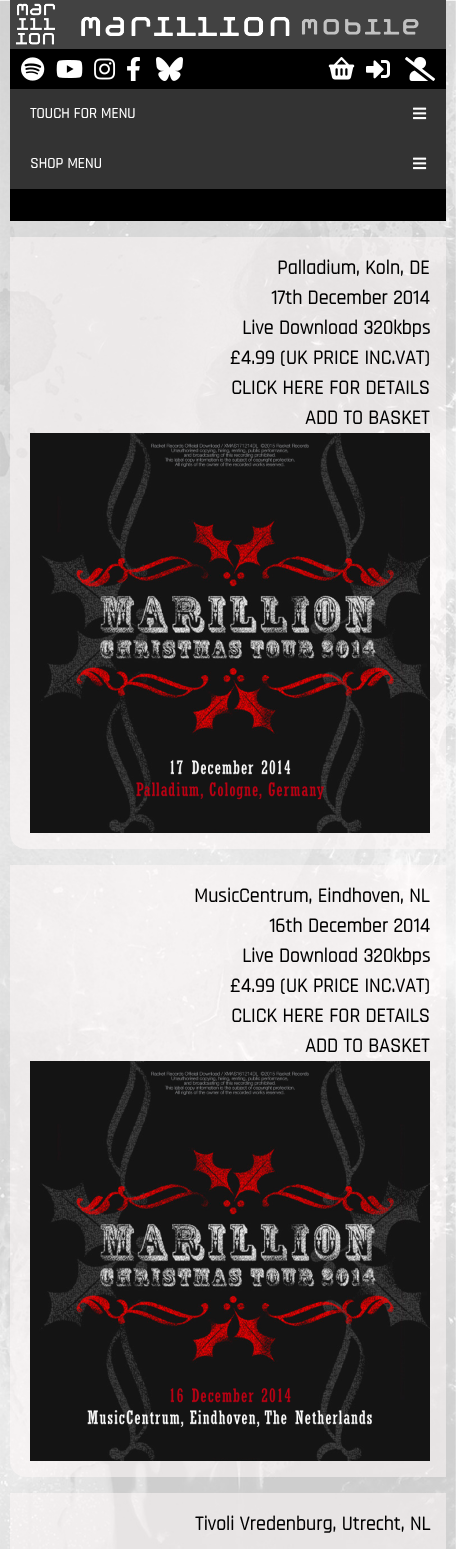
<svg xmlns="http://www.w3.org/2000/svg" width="456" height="1549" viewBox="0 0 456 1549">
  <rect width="100%" height="100%" fill="#fff"/>
  <image x="0" y="0" width="456" height="1549" href="img/1.png"/>
  <path d="M10 0h436v49H10z" fill="#424242"/>
  <image x="15" y="3" width="404" height="42" href="img/2.png"/>
  <path d="M10 49h436v40H10z" fill="#000"/>
  <image x="21" y="57" width="24" height="24" href="img/3.png"/>
  <image x="56" y="60" width="27" height="18" href="img/4.png"/>
  <image x="94" y="58" width="22" height="22" href="img/5.png"/>
  <image x="127" y="57" width="13" height="24" href="img/6.png"/>
  <image x="156" y="57" width="27" height="24" href="img/7.png"/>
  <image x="328" y="57" width="27" height="23" href="img/8.png"/>
  <image x="366" y="60" width="24" height="19" href="img/9.png"/>
  <image x="405" y="57" width="30" height="24" href="img/10.png"/>
  <path d="M10 89h436v100H10z" fill="#333"/>
  <image x="413" y="107" width="14" height="13" href="img/11.png"/>
  <image x="413" y="157" width="14" height="13" href="img/11.png"/>
  <path d="M10 189h436v32H10z" fill="#000"/>
  <path d="M10 237H446V849H26C17 849 10 842 10 833Z" fill="#fffafa80"/>
  <image x="30" y="433" width="400" height="400" href="img/12.png"/>
  <path d="M10 865H446V1477H26C17 1477 10 1470 10 1461Z" fill="#fffafa80"/>
  <image x="30" y="1061" width="400" height="400" href="img/13.png"/>
  <path d="M10 1493h436v56H10z" fill="#fffafa80"/>
  <g font-family="Rajdhani" font-size="15" font-weight="bold" fill="#fff">
    <text x="30" y="118">TOUCH FOR MENU</text>
    <text x="30" y="168">SHOP MENU</text>
  </g>
  <g font-family="Rajdhani" font-size="20" font-weight="bold" fill="#000">
    <text x="277" y="274">Palladium, Koln, DE</text>
    <text x="271" y="304">17th December 2014</text>
    <text x="242" y="334">Live Download 320kbps</text>
    <text x="230" y="364">£4.99 (UK PRICE INC.VAT)</text>
    <text x="231" y="394">CLICK HERE FOR DETAILS</text>
    <text x="305" y="424">ADD TO BASKET</text>
    <text x="194" y="902">MusicCentrum, Eindhoven, NL</text>
    <text x="269" y="932">16th December 2014</text>
    <text x="242" y="962">Live Download 320kbps</text>
    <text x="230" y="992">£4.99 (UK PRICE INC.VAT)</text>
    <text x="231" y="1022">CLICK HERE FOR DETAILS</text>
    <text x="305" y="1052">ADD TO BASKET</text>
    <text x="195" y="1530">Tivoli Vredenburg, Utrecht, NL</text>
  </g>
</svg>
